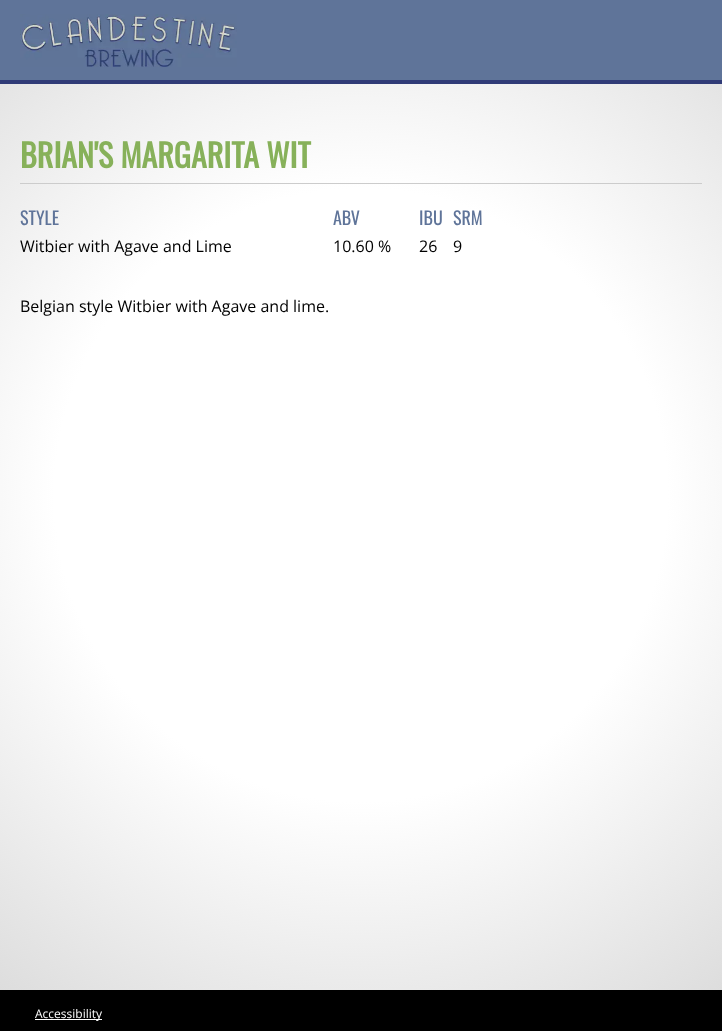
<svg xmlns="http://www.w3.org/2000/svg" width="722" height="1031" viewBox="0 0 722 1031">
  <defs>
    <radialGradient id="g1" gradientUnits="userSpaceOnUse" cx="361" cy="495" r="613"><stop offset="0" stop-color="#fff"/><stop offset="0.5" stop-color="#fff"/><stop offset="1" stop-color="#ddd"/></radialGradient>
  </defs>
  <rect width="100%" height="100%" fill="#fff"/>
  <path d="M0 0h722v80H0z" fill="#5f7499"/>
  <path d="M0 80h722v4H0z" fill="#303b77"/>
  <image x="20" y="14" width="217" height="53" href="img/1.png"/>
  <path d="M0 84h722v906H0z" fill="url(#g1)"/>
  <path d="M20 183h682v1H20z" fill="#ccc"/>
  <path d="M0 990h722v41H0z" fill="#000"/>
  <path d="M35 1019h67v1H35z" fill="#fff"/>
  <text x="20" y="168" font-family="Oswald" font-size="32" font-weight="bold" fill="#87b15a">BRIAN'S MARGARITA WIT</text>
  <g font-family="Oswald" font-size="18" fill="#5f7499">
    <text x="20" y="225">STYLE</text>
    <text x="333" y="225">ABV</text>
    <text x="419" y="225">IBU</text>
    <text x="453" y="225">SRM</text>
  </g>
  <g font-family="Open Sans" font-size="16" fill="#000">
    <text x="20" y="252">Witbier with Agave and Lime</text>
    <text x="333" y="252">10.60 %</text>
    <text x="419" y="252">26</text>
    <text x="453" y="252">9</text>
    <text x="20" y="312">Belgian style Witbier with Agave and lime.</text>
  </g>
  <text x="35" y="1018" font-family="Open Sans" font-size="12" fill="#fff">Accessibility</text>
</svg>
